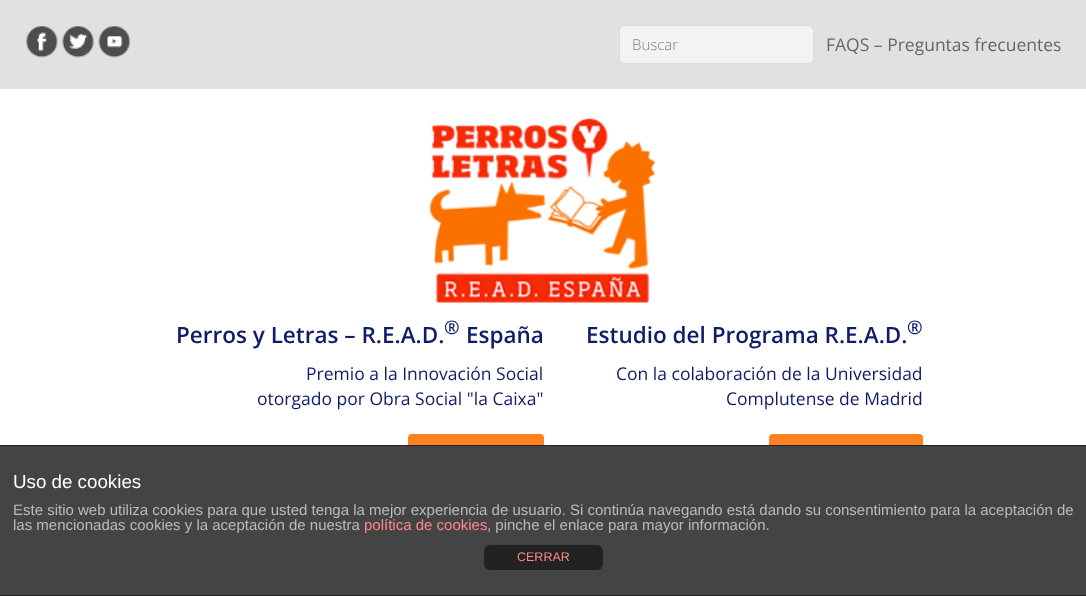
<svg xmlns="http://www.w3.org/2000/svg" width="1086" height="596" viewBox="0 0 1086 596">
  <rect width="100%" height="100%" fill="#fff"/>
  <path d="M0 0h1086v89H0z" fill="#e1e1e1"/>
  <image x="26" y="26" width="32" height="32" href="img/1.png"/>
  <image x="62" y="26" width="32" height="32" href="img/2.png"/>
  <image x="98" y="26" width="32" height="32" href="img/3.png"/>
  <rect x="619.5" y="25.5" width="194" height="38" rx="5.5" fill="#f3f3f3" stroke="#ddd"/>
  <image x="429" y="118" width="227" height="185" href="img/4.png"/>
  <rect x="408" y="434" width="136" height="49" rx="4" fill="#ff801e"/>
  <rect x="769" y="434" width="154" height="49" rx="4" fill="#ff801e"/>
  <path d="M0 446h1086v149H0z" fill="#444"/>
  <path d="M0 445h1086v1H0z" fill="#222"/>
  <path d="M0 595h1086v1H0z" fill="#222"/>
  <rect x="484" y="545" width="119" height="25" rx="6" fill="#222"/>
  <text x="632" y="50" font-family="Open Sans" font-size="15" font-weight="300" fill="#808080">Buscar</text>
  <text x="826" y="51" font-family="Open Sans" font-size="17.5" fill="#666">FAQS – Preguntas frecuentes</text>
  <text x="176" y="343" font-family="Open Sans" font-size="22.5" font-weight="600" fill="#101c68">Perros y Letras – R.E.A.D.</text>
  <text x="444" y="334" font-family="Open Sans" font-size="18.75" font-weight="600" fill="#101c68">®</text>
  <text x="466" y="343" font-family="Open Sans" font-size="22.5" font-weight="600" fill="#101c68">España</text>
  <g font-family="Open Sans" font-size="17.5" fill="#101c68">
    <text x="306" y="380">Premio a la Innovación Social</text>
    <text x="257" y="405">otorgado por Obra Social "la Caixa"</text>
  </g>
  <text x="586" y="343" font-family="Open Sans" font-size="22.5" font-weight="600" fill="#101c68">Estudio del Programa R.E.A.D.</text>
  <text x="907" y="334" font-family="Open Sans" font-size="18.75" font-weight="600" fill="#101c68">®</text>
  <g font-family="Open Sans" font-size="17.5" fill="#101c68">
    <text x="616" y="380">Con la colaboración de la Universidad</text>
    <text x="726" y="405">Complutense de Madrid</text>
  </g>
  <text x="13" y="488" font-family="Liberation Sans" font-size="18.75" fill="#fff">Uso de cookies</text>
  <g font-family="Liberation Sans" font-size="15" fill="#bbb">
    <text x="13" y="515">Este sitio web utiliza cookies para que usted tenga la mejor experiencia de usuario. Si continúa navegando está dando su consentimiento para la aceptación de</text>
    <text x="13" y="530">las mencionadas cookies y la aceptación de nuestra</text>
  </g>
  <text x="364" y="530" font-family="Liberation Sans" font-size="15" fill="#f88">política de cookies</text>
  <text x="487" y="530" font-family="Liberation Sans" font-size="15" fill="#bbb">, pinche el enlace para mayor información.</text>
  <text x="517" y="561" font-family="Liberation Sans" font-size="12.5" fill="#f88">CERRAR</text>
</svg>
